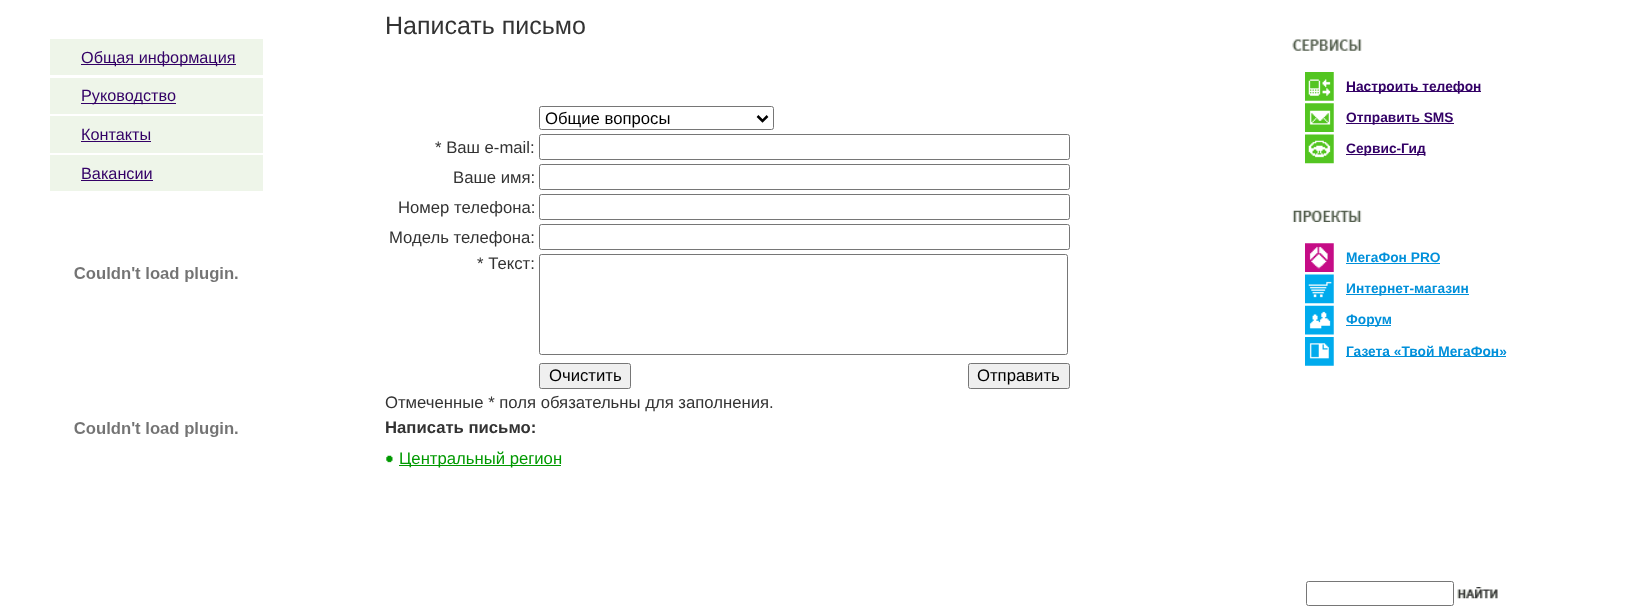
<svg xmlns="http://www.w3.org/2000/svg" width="1627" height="608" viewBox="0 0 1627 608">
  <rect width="100%" height="100%" fill="#fff"/>
  <path d="M50 39h213v36H50z" fill="#eef5e9"/>
  <path d="M81 64h155v1H81z" fill="#306"/>
  <path d="M50 78h213v36H50z" fill="#eef5e9"/>
  <path d="M81 103h95v1H81z" fill="#306"/>
  <path d="M50 116h213v37H50z" fill="#eef5e9"/>
  <path d="M81 141h70v1H81z" fill="#306"/>
  <path d="M50 155h213v36H50z" fill="#eef5e9"/>
  <path d="M81 180h72v1H81z" fill="#306"/>
  <image x="74" y="267" width="164" height="15" href="img/1.png"/>
  <image x="74" y="422" width="164" height="15" href="img/1.png"/>
  <rect x="539.5" y="106.5" width="234" height="23" rx="2" fill="none" stroke="#767676"/>
  <path d="M757.5 116L762.5 121L767.5 116" fill="none" stroke="#000" stroke-width="2.5"/>
  <rect x="539.5" y="134.5" width="530" height="25" rx="2" fill="none" stroke="#767676"/>
  <rect x="539.5" y="164.5" width="530" height="25" rx="2" fill="none" stroke="#767676"/>
  <rect x="539.5" y="194.5" width="530" height="25" rx="2" fill="none" stroke="#767676"/>
  <rect x="539.5" y="224.5" width="530" height="25" rx="2" fill="none" stroke="#767676"/>
  <rect x="539.5" y="254.5" width="528" height="100" rx="2" fill="none" stroke="#767676"/>
  <rect x="539.5" y="363.5" width="91" height="25" rx="2" fill="#efefef" stroke="#767676"/>
  <rect x="968.5" y="363.5" width="101" height="25" rx="2" fill="#efefef" stroke="#767676"/>
  <image x="386" y="455" width="7" height="8" href="img/2.png"/>
  <path d="M399 465h162v1H399z" fill="#090"/>
  <image x="1292" y="39" width="70" height="12" href="img/3.png"/>
  <image x="1305" y="72" width="29" height="29" href="img/4.png"/>
  <path d="M1346 91h135v1H1346z" fill="#306"/>
  <image x="1305" y="103" width="29" height="29" href="img/5.png"/>
  <path d="M1346 123h108v1H1346z" fill="#306"/>
  <image x="1305" y="134" width="29" height="30" href="img/6.png"/>
  <path d="M1346 154h79v1H1346z" fill="#306"/>
  <image x="1292" y="210" width="70" height="12" href="img/7.png"/>
  <image x="1305" y="243" width="29" height="29" href="img/8.png"/>
  <path d="M1346 263h94v1H1346z" fill="#0090da"/>
  <image x="1305" y="274" width="29" height="30" href="img/9.png"/>
  <path d="M1346 294h123v1H1346z" fill="#0090da"/>
  <image x="1305" y="305" width="29" height="30" href="img/10.png"/>
  <path d="M1346 325h45v1H1346z" fill="#0090da"/>
  <image x="1305" y="337" width="29" height="29" href="img/11.png"/>
  <path d="M1346 356h160v1H1346z" fill="#0090da"/>
  <rect x="1306.5" y="581.5" width="147" height="24" rx="2" fill="none" stroke="#767676"/>
  <image x="1457" y="587" width="41" height="12" href="img/12.png"/>
  <g font-family="Liberation Sans" font-size="16.25" fill="#306">
    <text x="81" y="63">Общая информация</text>
    <text x="81" y="101">Руководство</text>
    <text x="81" y="140">Контакты</text>
    <text x="81" y="179">Вакансии</text>
  </g>
  <text x="385" y="34" font-family="Liberation Sans" font-size="25" fill="#333">Написать письмо</text>
  <text x="545" y="124" font-family="Liberation Sans" font-size="16.7" fill="#000">Общие вопросы</text>
  <g font-family="Liberation Sans" font-size="16.7" fill="#333">
    <text x="435" y="153">* Ваш e-mail:</text>
    <text x="453" y="183">Ваше имя:</text>
    <text x="398" y="213">Номер телефона:</text>
    <text x="389" y="243">Модель телефона:</text>
    <text x="477" y="269">* Текст:</text>
  </g>
  <g font-family="Liberation Sans" font-size="16.7" fill="#000">
    <text x="549" y="381">Очистить</text>
    <text x="977" y="381">Отправить</text>
  </g>
  <text x="385" y="408" font-family="Liberation Sans" font-size="16.7" fill="#333">Отмеченные * поля обязательны для заполнения.</text>
  <text x="385" y="433" font-family="Liberation Sans" font-size="16.7" font-weight="bold" fill="#333">Написать письмо:</text>
  <text x="399" y="464" font-family="Liberation Sans" font-size="16.7" fill="#090">Центральный регион</text>
  <g font-family="Liberation Sans" font-size="13.75" font-weight="bold" fill="#306">
    <text x="1346" y="91">Настроить телефон</text>
    <text x="1346" y="122">Отправить SMS</text>
    <text x="1346" y="153">Сервис-Гид</text>
  </g>
  <g font-family="Liberation Sans" font-size="13.75" font-weight="bold" fill="#0090da">
    <text x="1346" y="262">МегаФон PRO</text>
    <text x="1346" y="293">Интернет-магазин</text>
    <text x="1346" y="324">Форум</text>
    <text x="1346" y="356">Газета «Твой МегаФон»</text>
  </g>
</svg>
